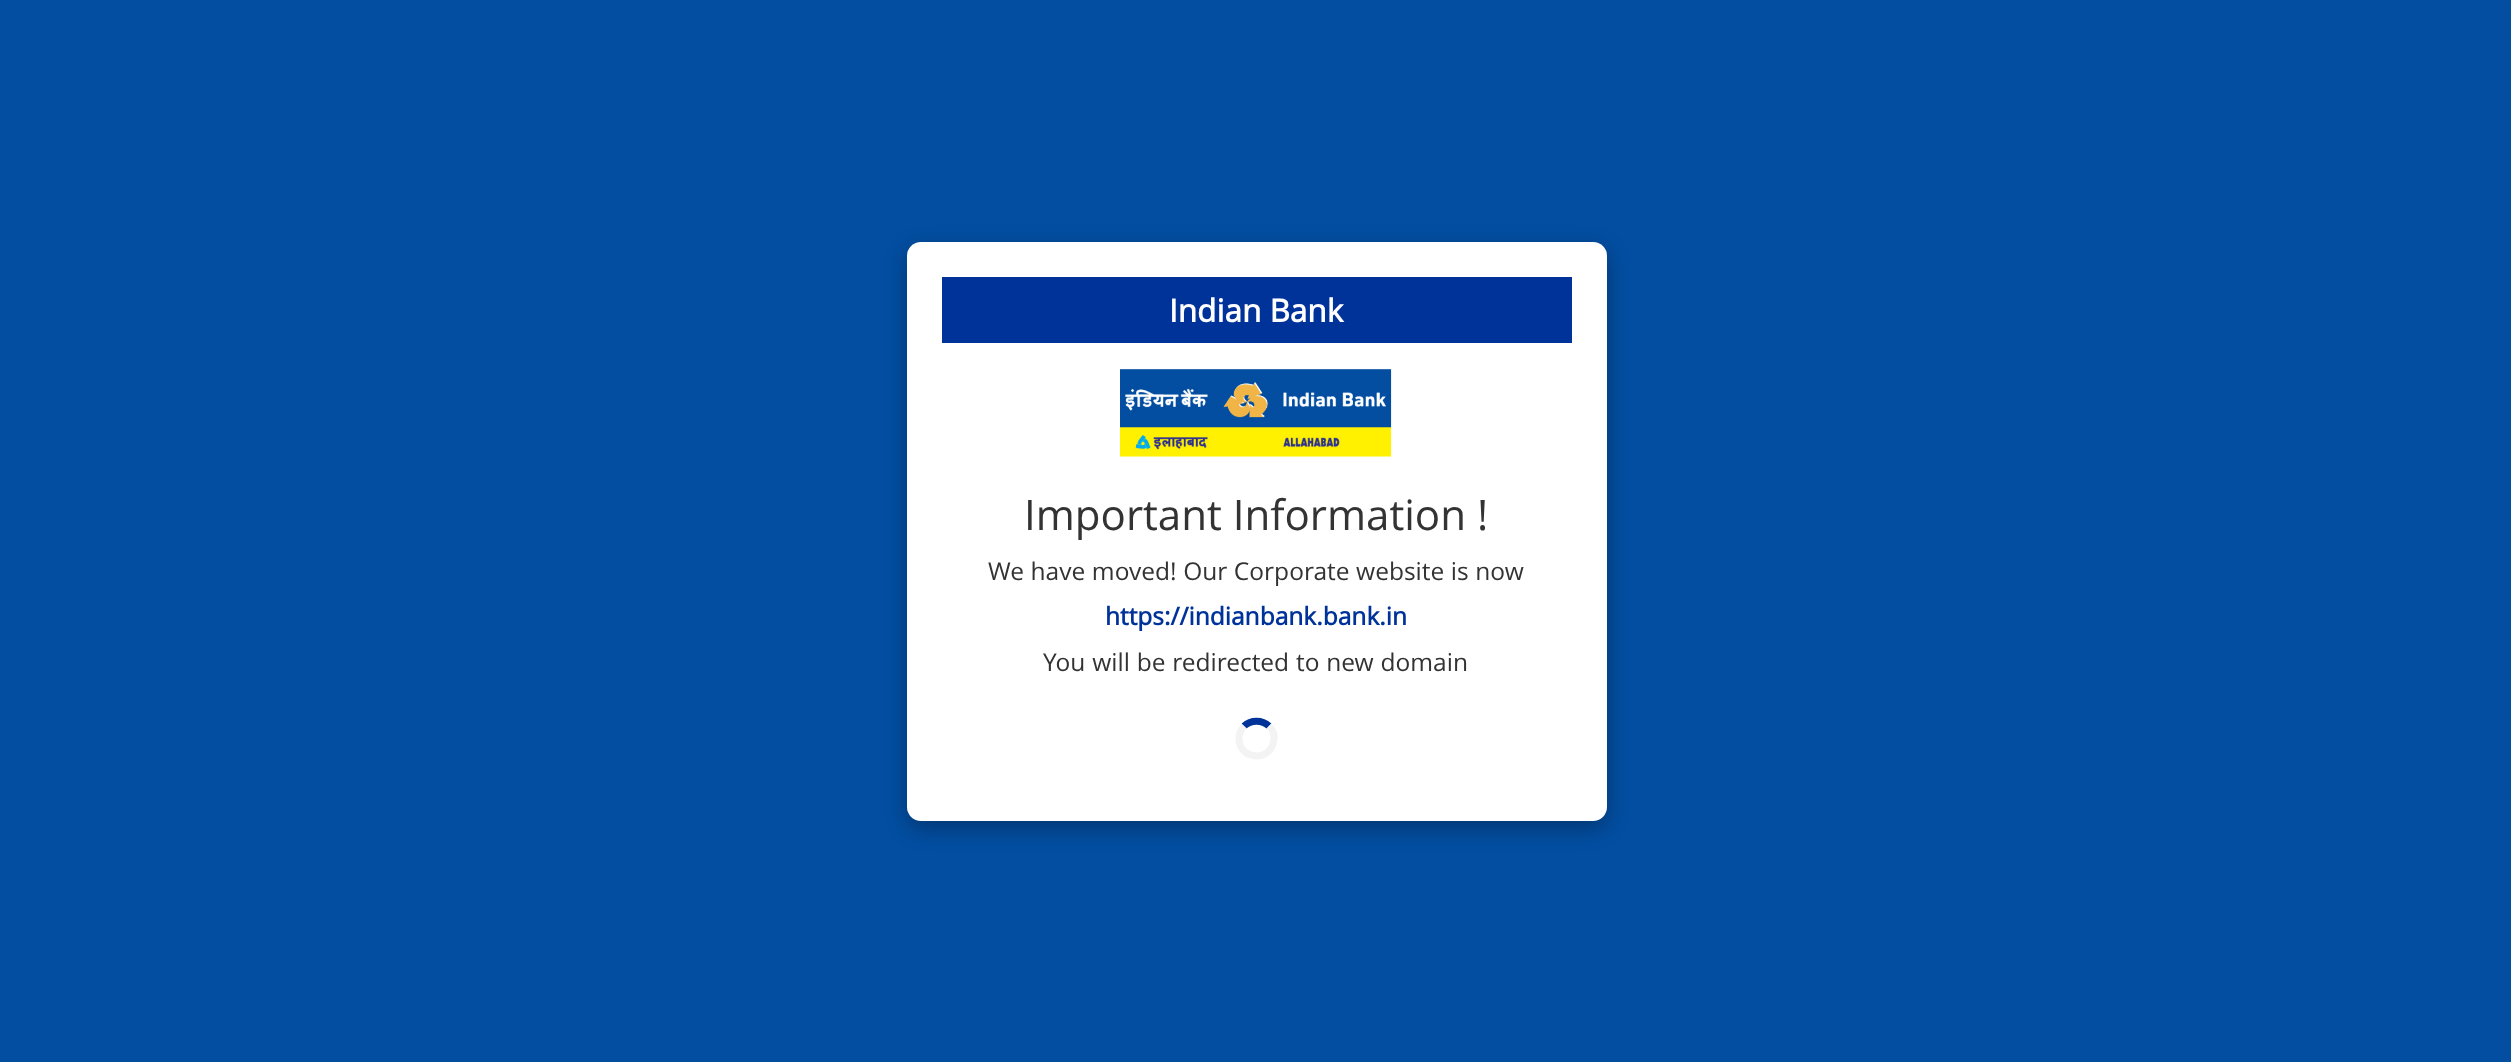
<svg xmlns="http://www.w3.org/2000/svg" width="2511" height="1062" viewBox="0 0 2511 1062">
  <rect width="100%" height="100%" fill="#034ea1"/>
  <rect x="907" y="249" width="700" height="579" rx="14" fill="#0000004d" filter="blur(10.5px)"/>
  <rect x="907" y="242" width="700" height="579" rx="14" fill="#fff"/>
  <path d="M942 277h630v66H942z" fill="#039"/>
  <image x="1120" y="369" width="272" height="88" href="img/1.png"/>
  <path d="M1244 726C1251 719.5 1262 719.5 1269 726" fill="none" stroke="#039" stroke-width="7"/>
  <path d="M1269 726C1273 730 1275 736 1273.5 742C1269.5 762.5 1239 759.5 1239 738.5C1239 734 1241 729.5 1244 726" fill="none" stroke="#f3f3f3" stroke-width="7"/>
  <text x="1169" y="322" font-family="Open Sans" font-size="31.5" font-weight="bold" fill="#fff">Indian Bank</text>
  <text x="1024" y="530" font-family="Open Sans" font-size="42" fill="#333">Important Information !</text>
  <text x="988" y="580" word-spacing="0.25" font-family="Open Sans" font-size="24.5" fill="#333">We have moved! Our Corporate website is now</text>
  <text x="1105" y="625" font-family="Open Sans" font-size="24.5" font-weight="bold" fill="#039">https://indianbank.bank.in</text>
  <text x="1043" y="671" word-spacing="0.5" font-family="Open Sans" font-size="24.5" fill="#333">You will be redirected to new domain</text>
</svg>
